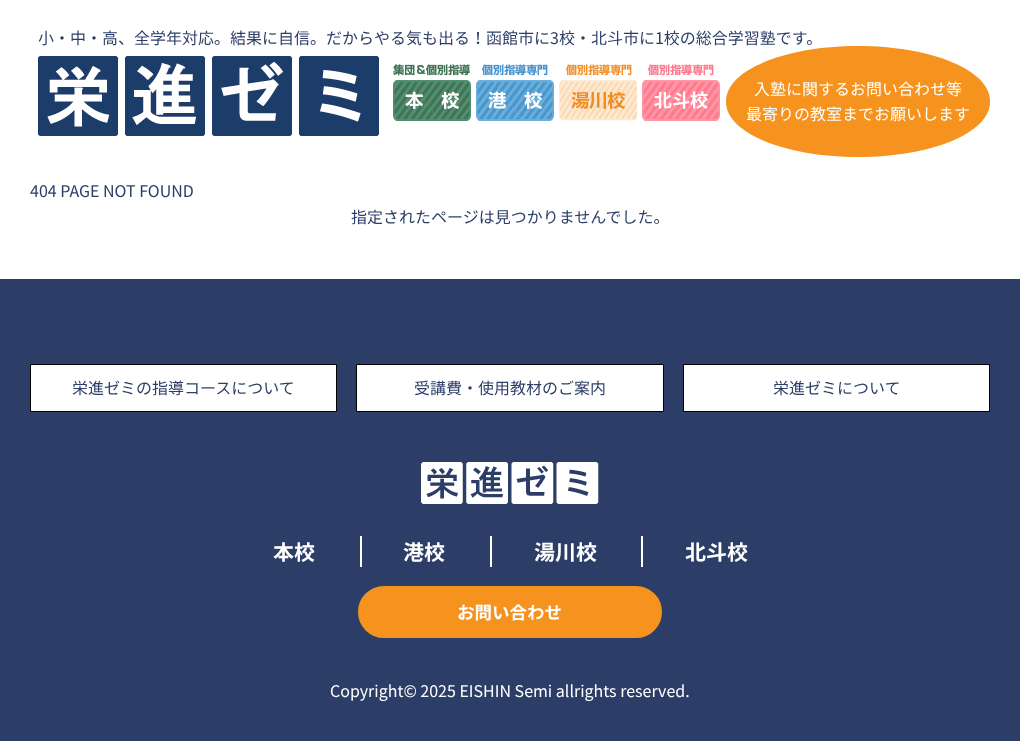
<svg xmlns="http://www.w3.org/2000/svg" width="1020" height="741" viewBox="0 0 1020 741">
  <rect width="100%" height="100%" fill="#fff"/>
  <image x="38" y="56" width="341" height="80" href="img/1.png"/>
  <image x="393" y="64" width="78" height="57" href="img/2.png"/>
  <image x="476" y="64" width="78" height="57" href="img/3.png"/>
  <image x="559" y="64" width="78" height="57" href="img/4.png"/>
  <image x="642" y="64" width="78" height="57" href="img/5.png"/>
  <path d="M858 46C931 46 990 70 990 101V102C990 133 931 157 858 157C785 157 726 133 726 102V101C726 70 785 46 858 46Z" fill="#f6921e"/>
  <path d="M0 279h1020v462H0z" fill="#2c3e67"/>
  <path d="M30.5 364.5h306v47H30.5z" fill="#fff" stroke="#000"/>
  <path d="M356.5 364.5h307v47H356.5z" fill="#fff" stroke="#000"/>
  <path d="M683.5 364.5h306v47H683.5z" fill="#fff" stroke="#000"/>
  <image x="421" y="462" width="178" height="42" href="img/6.png"/>
  <path d="M360 536h2v31H360z" fill="#fff"/>
  <path d="M490 536h2v31H490z" fill="#fff"/>
  <path d="M641 536h2v31H641z" fill="#fff"/>
  <rect x="359" y="587" width="302" height="50" rx="25" fill="#f6921e" stroke="#f6921e" stroke-width="2"/>
  <text x="38" y="44" font-family="Noto Sans JP" font-size="16" fill="#2c3e67">小・中・高、全学年対応。結果に自信。だからやる気も出る！函館市に3校・北斗市に1校の総合学習塾です。</text>
  <g font-family="Noto Sans JP" font-size="16" fill="#fff">
    <text x="754" y="95">入塾に関するお問い合わせ等</text>
    <text x="746" y="120">最寄りの教室までお願いします</text>
  </g>
  <g font-family="Noto Sans JP" font-size="16" fill="#2c3e67">
    <text x="30" y="197">404 PAGE NOT FOUND</text>
    <text x="351" y="223">指定されたページは見つかりませんでした。</text>
    <text x="72" y="394">栄進ゼミの指導コースについて</text>
    <text x="414" y="394">受講費・使用教材のご案内</text>
    <text x="773" y="394">栄進ゼミについて</text>
  </g>
  <g font-family="Noto Sans JP" font-size="21" font-weight="bold" fill="#fff">
    <text x="273" y="560">本校</text>
    <text x="403" y="560">港校</text>
    <text x="534" y="560">湯川校</text>
    <text x="685" y="560">北斗校</text>
  </g>
  <text x="457" y="619" font-family="Noto Sans JP" font-size="17.5" font-weight="bold" fill="#fff">お問い合わせ</text>
  <text x="330" y="697" font-family="Noto Sans JP" font-size="16" fill="#fff">Copyright© 2025 EISHIN Semi allrights reserved.</text>
</svg>
